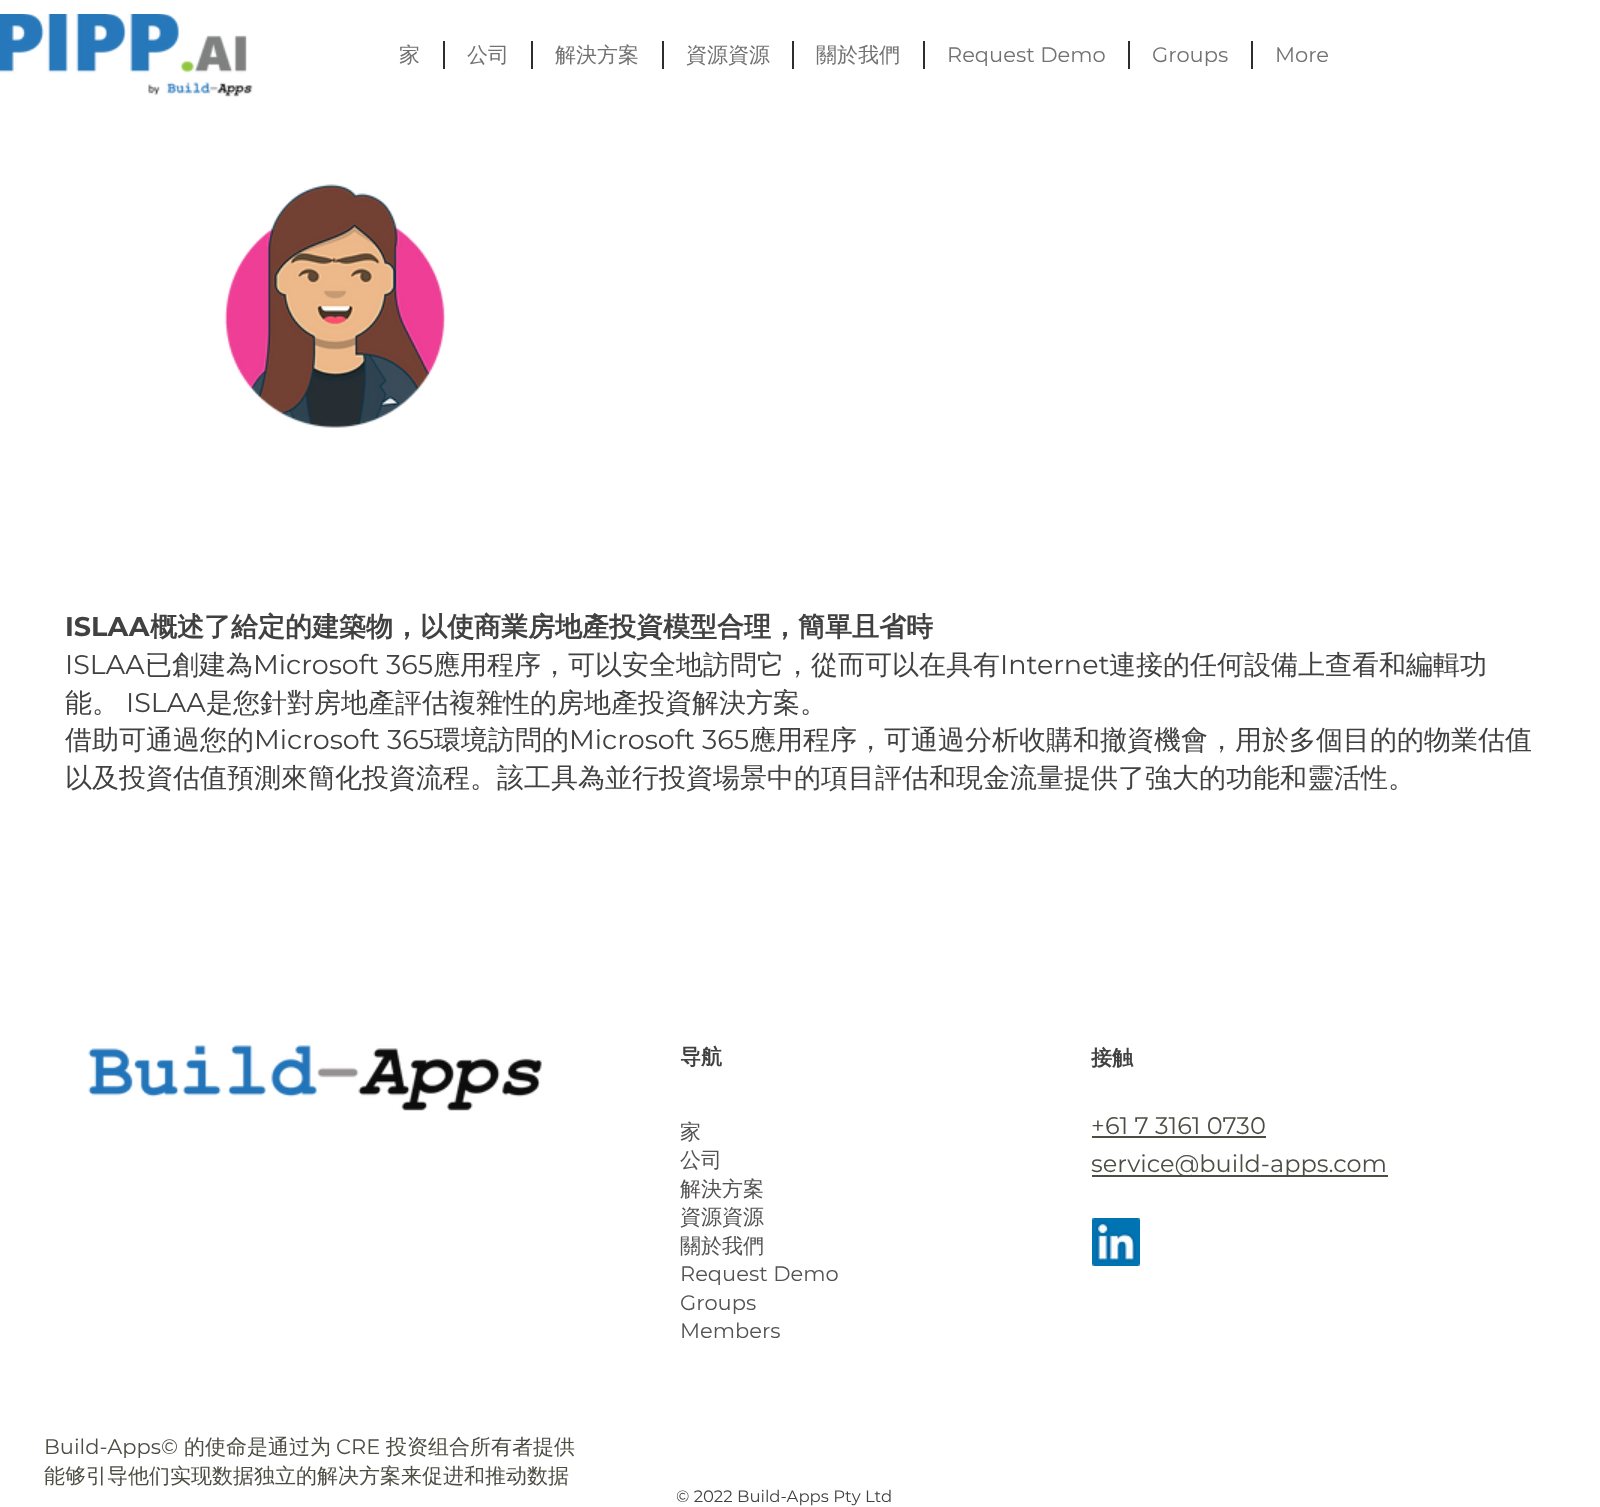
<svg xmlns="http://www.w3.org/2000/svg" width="1600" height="1507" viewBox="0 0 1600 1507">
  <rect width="100%" height="100%" fill="#fff"/>
  <image x="0" y="14" width="253" height="83" href="img/1.png"/>
  <path d="M443 41h2v28H443z" fill="#2d2d2f"/>
  <path d="M531 41h2v28H531z" fill="#2d2d2f"/>
  <path d="M662 41h2v28H662z" fill="#2d2d2f"/>
  <path d="M792 41h2v28H792z" fill="#2d2d2f"/>
  <path d="M923 41h2v28H923z" fill="#2d2d2f"/>
  <path d="M1128 41h2v28H1128z" fill="#2d2d2f"/>
  <path d="M1251 41h2v28H1251z" fill="#2d2d2f"/>
  <image x="224" y="184" width="222" height="244" href="img/2.png"/>
  <image x="88" y="1045" width="454" height="66" href="img/3.png"/>
  <path d="M1092 1136h174v2H1092z" fill="#4d4d43"/>
  <path d="M1092 1175h296v2H1092z" fill="#4d4d43"/>
  <image x="1092" y="1218" width="48" height="48" href="img/4.png"/>
  <g font-family="WenQuanYi Zen Hei" font-size="21" font-weight="500" fill="#727272">
    <text x="399" y="62">家</text>
    <text x="467" y="62">公司</text>
    <text x="555" y="62">解決方案</text>
    <text x="686" y="62">資源資源</text>
    <text x="816" y="62">關於我們</text>
  </g>
  <g font-family="Montserrat" font-size="21" fill="#727272">
    <text x="947" y="62">Request Demo</text>
    <text x="1152" y="62">Groups</text>
    <text x="1275" y="62">More</text>
  </g>
  <text x="65" y="636" font-family="Montserrat" font-size="27" font-weight="bold" fill="#414141">ISLAA</text>
  <text x="150" y="636" font-family="WenQuanYi Zen Hei" font-size="27" font-weight="bold" fill="#414141">概述了給定的建築物，以使商業房地產投資模型合理，簡單且省時</text>
  <text x="65" y="674" font-family="Montserrat" font-size="27" fill="#414141">ISLAA</text>
  <text x="145" y="674" font-family="WenQuanYi Zen Hei" font-size="27" font-weight="500" fill="#414141">已創建為</text>
  <text x="253" y="674" font-family="Montserrat" font-size="27" fill="#414141">Microsoft 365</text>
  <text x="433" y="674" font-family="WenQuanYi Zen Hei" font-size="27" font-weight="500" fill="#414141">應用程序，可以安全地訪問它，從而可以在具有</text>
  <text x="1000" y="674" font-family="Montserrat" font-size="27" fill="#414141">Internet</text>
  <g font-family="WenQuanYi Zen Hei" font-size="27" font-weight="500" fill="#414141">
    <text x="1109" y="674">連接的任何設備上查看和編輯功</text>
    <text x="65" y="712">能。</text>
  </g>
  <text x="126" y="712" font-family="Montserrat" font-size="27" fill="#414141">ISLAA</text>
  <g font-family="WenQuanYi Zen Hei" font-size="27" font-weight="500" fill="#414141">
    <text x="206" y="712">是您針對房地產評估複雜性的房地產投資解決方案。</text>
    <text x="65" y="749">借助可通過您的</text>
  </g>
  <text x="254" y="749" font-family="Montserrat" font-size="27" fill="#414141">Microsoft 365</text>
  <text x="434" y="749" font-family="WenQuanYi Zen Hei" font-size="27" font-weight="500" fill="#414141">環境訪問的</text>
  <text x="569" y="749" font-family="Montserrat" font-size="27" fill="#414141">Microsoft 365</text>
  <g font-family="WenQuanYi Zen Hei" font-size="27" font-weight="500" fill="#414141">
    <text x="749" y="749">應用程序，可通過分析收購和撤資機會，用於多個目的的物業估值</text>
    <text x="65" y="787">以及投資估值預測來簡化投資流程。該工具為並行投資場景中的項目評估和現金流量提供了強大的功能和靈活性。</text>
  </g>
  <g font-family="WenQuanYi Zen Hei" font-size="21" font-weight="bold" fill="#414141">
    <text x="680" y="1064">导航</text>
    <text x="1091" y="1065">接触</text>
  </g>
  <g font-family="Montserrat" font-size="24" fill="#4d4d43">
    <text x="1091" y="1134">+61 7 3161 0730</text>
    <text x="1091" y="1172">service@build-apps.com</text>
  </g>
  <g font-family="WenQuanYi Zen Hei" font-size="21" font-weight="500" fill="#555252">
    <text x="680" y="1139">家</text>
    <text x="680" y="1167">公司</text>
    <text x="680" y="1196">解決方案</text>
    <text x="680" y="1224">資源資源</text>
    <text x="680" y="1253">關於我們</text>
  </g>
  <g font-family="Montserrat" font-size="21" fill="#555252">
    <text x="680" y="1281">Request Demo</text>
    <text x="680" y="1310">Groups</text>
    <text x="680" y="1338">Members</text>
  </g>
  <text x="44" y="1454" font-family="Montserrat" font-size="21" fill="#4d4d43">Build-Apps©</text>
  <text x="184" y="1454" font-family="WenQuanYi Zen Hei" font-size="21" font-weight="500" fill="#4d4d43">的使命是通过为</text>
  <text x="336" y="1454" font-family="Montserrat" font-size="21" fill="#4d4d43">CRE</text>
  <g font-family="WenQuanYi Zen Hei" font-size="21" font-weight="500" fill="#4d4d43">
    <text x="386" y="1454">投资组合所有者提供</text>
    <text x="44" y="1483">能够引导他们实现数据独立的解决方案来促进和推动数据</text>
  </g>
  <text x="676" y="1502" font-family="Montserrat" font-size="16.5" fill="#414141">© 2022 Build-Apps Pty Ltd</text>
</svg>
